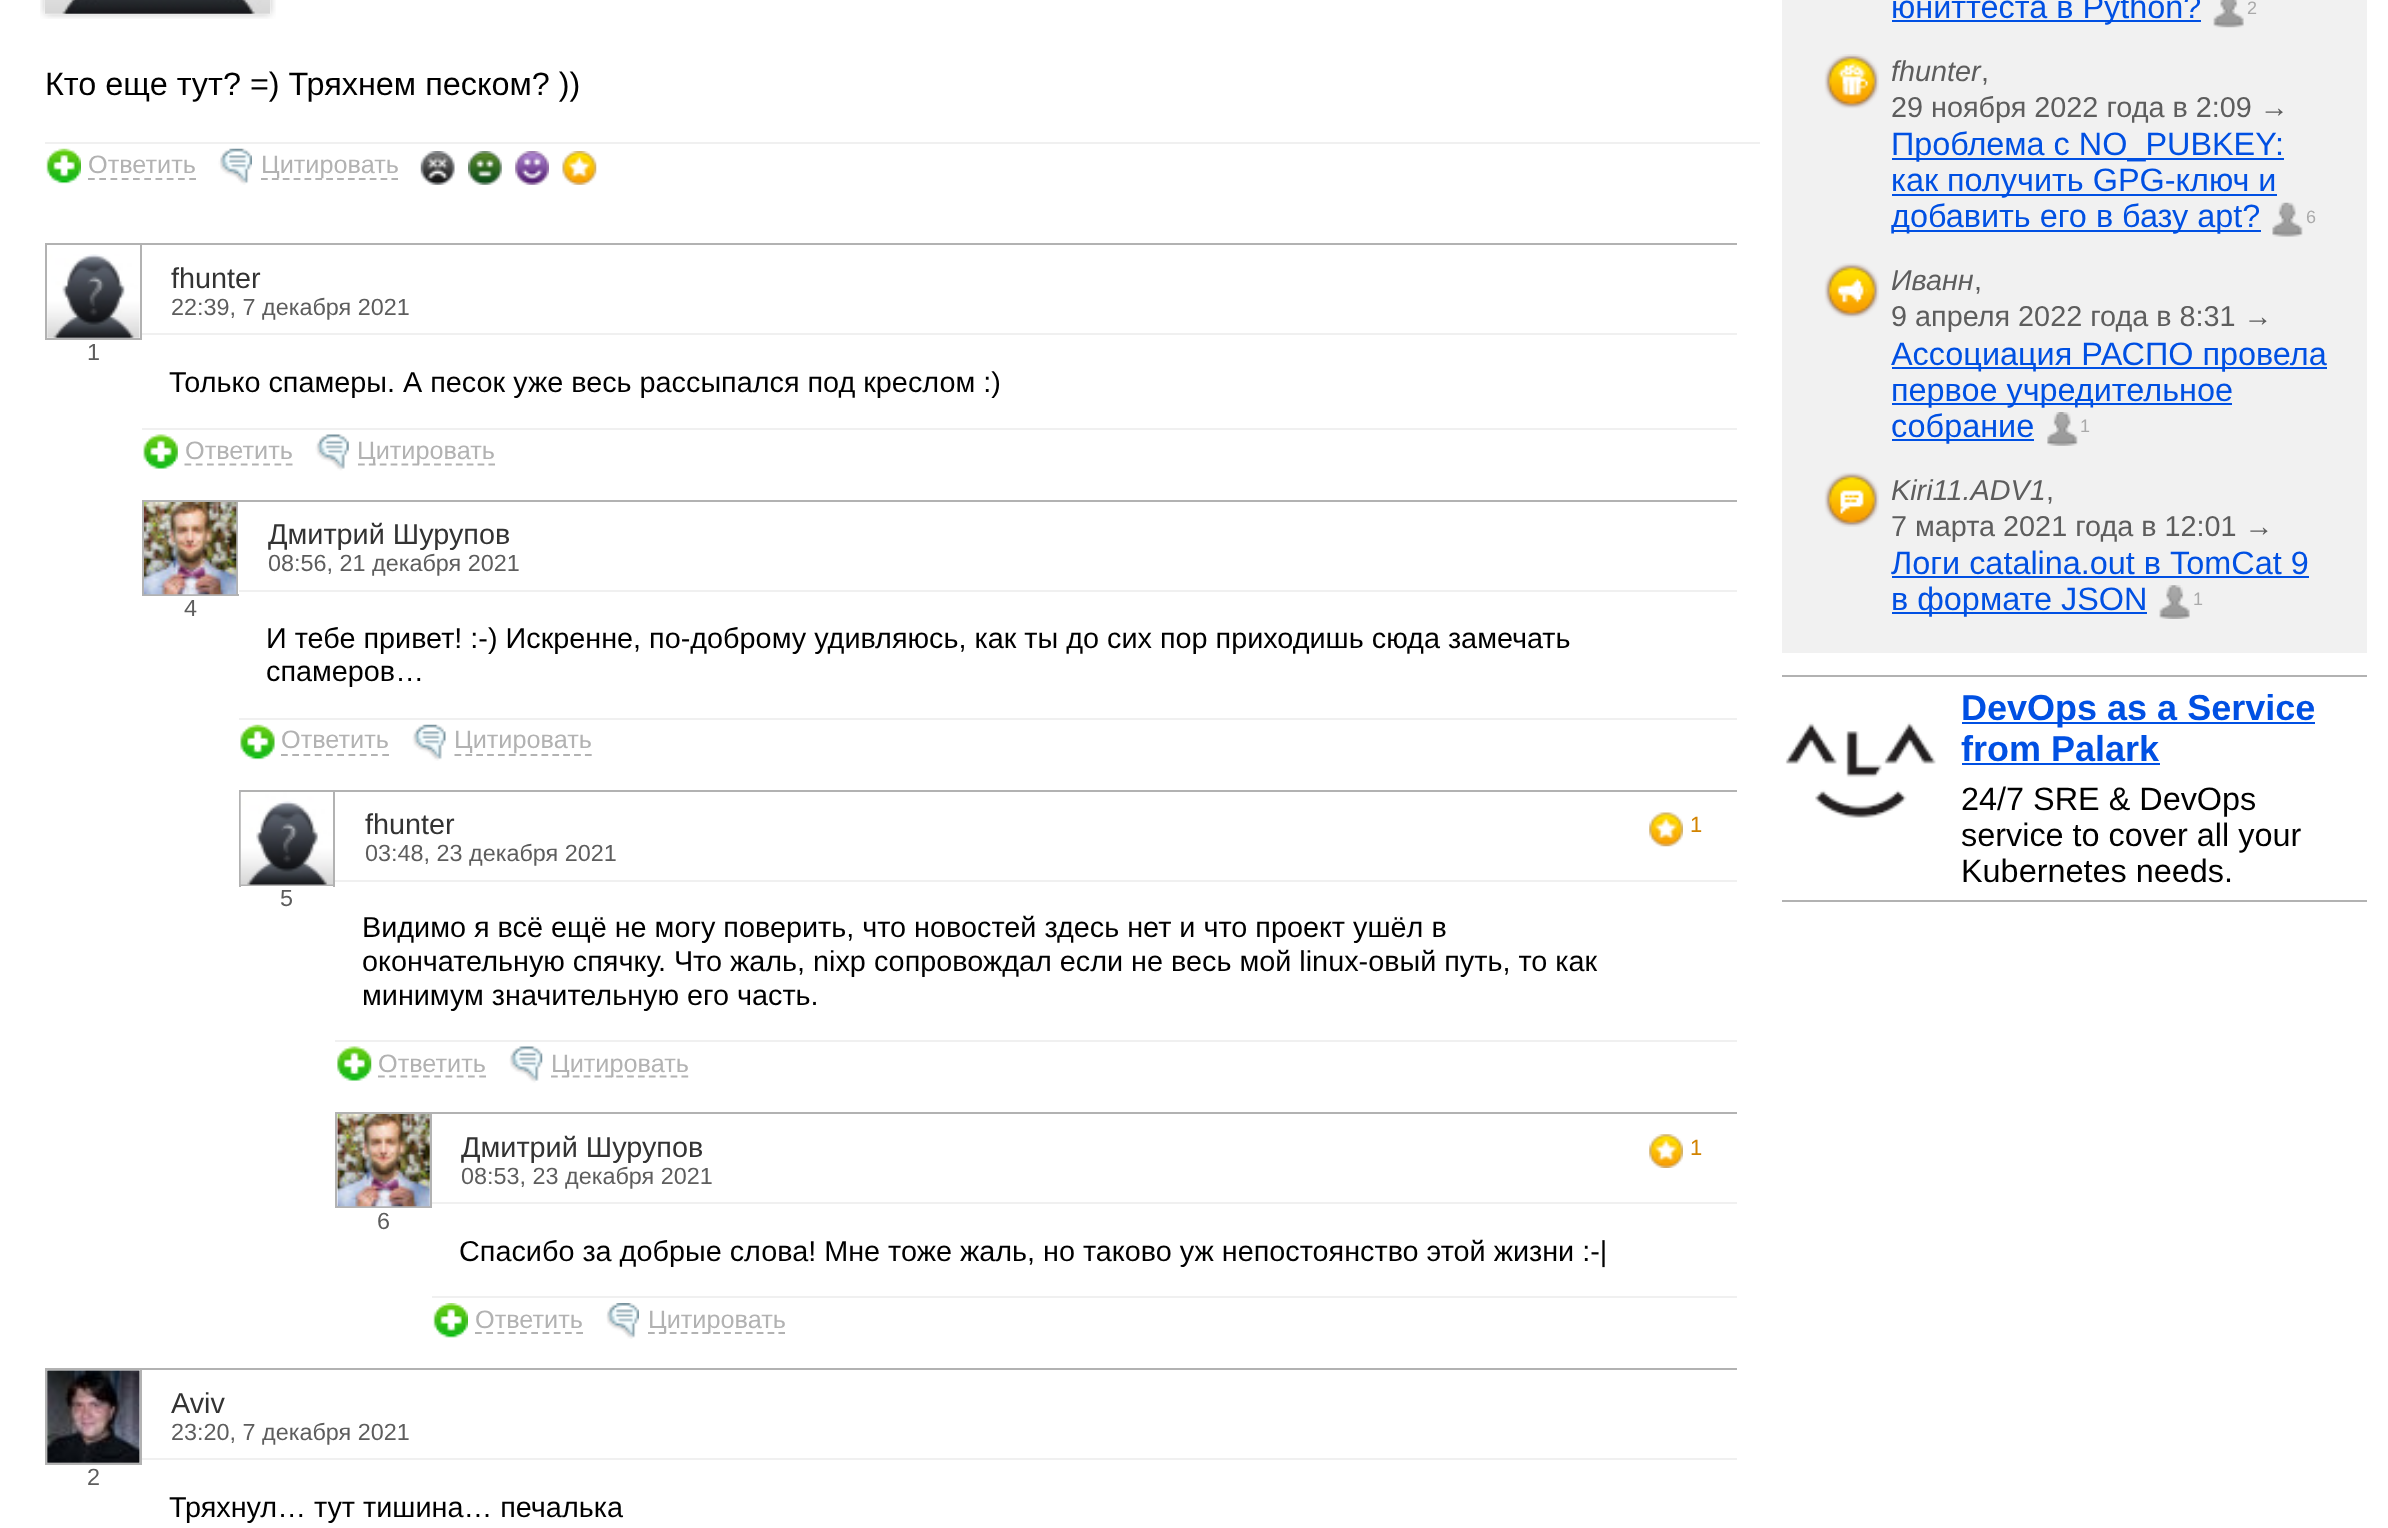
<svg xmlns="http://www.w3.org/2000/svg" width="2388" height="1528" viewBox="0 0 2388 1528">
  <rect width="100%" height="100%" fill="#fff"/>
  <image x="40" y="0" width="236" height="19" href="img/1.png"/>
  <image x="45" y="0" width="225" height="14" href="img/2.png"/>
  <path d="M45 142h1715v2H45z" fill="#f0f0f0"/>
  <image x="46" y="148" width="35" height="36" href="img/3.png"/>
  <path d="M88 179H196" fill="none" stroke="#b2b2b2" stroke-width="2.2" stroke-dasharray="6.75 4.5"/>
  <image x="218" y="148" width="34" height="37" href="img/4.png"/>
  <path d="M261 179H398" fill="none" stroke="#b2b2b2" stroke-width="2.2" stroke-dasharray="6.75 4.12"/>
  <image x="420" y="151" width="35" height="34" href="img/5.png"/>
  <image x="468" y="151" width="34" height="34" href="img/6.png"/>
  <image x="515" y="151" width="34" height="34" href="img/7.png"/>
  <image x="562" y="151" width="35" height="34" href="img/8.png"/>
  <path d="M45 243h1692v2H45z" fill="#b2b2b2"/>
  <path d="M142 333h1595v2H142z" fill="#f0f0f0"/>
  <path d="M140 245h2v95H140z" fill="#b2b2b2"/>
  <path d="M45 338h97v2H45z" fill="#b2b2b2"/>
  <path d="M45 245h2v95H45z" fill="#b2b2b2"/>
  <image x="47" y="254" width="93" height="84" href="img/9.png"/>
  <path d="M142 428h1595v2H142z" fill="#f0f0f0"/>
  <image x="143" y="434" width="35" height="35" href="img/10.png"/>
  <path d="M184.5 464.5H292.5" fill="none" stroke="#b2b2b2" stroke-width="2.2" stroke-dasharray="6.75 4.5"/>
  <image x="315" y="434" width="34" height="37" href="img/11.png"/>
  <path d="M358 464.5H495" fill="none" stroke="#b2b2b2" stroke-width="2.2" stroke-dasharray="6.75 4.12"/>
  <path d="M142 500h1595v2H142z" fill="#b2b2b2"/>
  <path d="M239 590h1498v2H239z" fill="#f0f0f0"/>
  <path d="M236 502h2v94H236z" fill="#b2b2b2"/>
  <path d="M142 594h97v2H142z" fill="#b2b2b2"/>
  <path d="M142 502h2v94H142z" fill="#b2b2b2"/>
  <image x="144" y="502" width="93" height="93" href="img/12.png"/>
  <path d="M239 718h1498v2H239z" fill="#f0f0f0"/>
  <image x="240" y="724" width="35" height="36" href="img/13.png"/>
  <path d="M281 755H389" fill="none" stroke="#b2b2b2" stroke-width="2.2" stroke-dasharray="6.75 4.5"/>
  <image x="412" y="724" width="34" height="37" href="img/14.png"/>
  <path d="M454.5 755H592" fill="none" stroke="#b2b2b2" stroke-width="2.2" stroke-dasharray="6.75 4.12"/>
  <path d="M239 790h1498v2H239z" fill="#b2b2b2"/>
  <path d="M335 880h1402v2H335z" fill="#f0f0f0"/>
  <image x="1649" y="812" width="34" height="35" href="img/15.png"/>
  <path d="M333 792h2v95H333z" fill="#b2b2b2"/>
  <path d="M239 884h96v2H239z" fill="#b2b2b2"/>
  <path d="M239 792h2v95H239z" fill="#b2b2b2"/>
  <image x="240" y="792" width="93" height="93" href="img/16.png"/>
  <path d="M335 1040h1402v2H335z" fill="#f0f0f0"/>
  <image x="337" y="1046" width="35" height="35" href="img/17.png"/>
  <path d="M378 1076.5H486" fill="none" stroke="#b2b2b2" stroke-width="2.2" stroke-dasharray="6.75 4.5"/>
  <image x="509" y="1046" width="34" height="37" href="img/18.png"/>
  <path d="M551 1076.5H688.5" fill="none" stroke="#b2b2b2" stroke-width="2.2" stroke-dasharray="6.75 4.12"/>
  <path d="M335 1112h1402v2H335z" fill="#b2b2b2"/>
  <path d="M432 1202h1305v2H432z" fill="#f0f0f0"/>
  <image x="1649" y="1134" width="34" height="34" href="img/19.png"/>
  <path d="M430 1114h2v94H430z" fill="#b2b2b2"/>
  <path d="M335 1206h97v2H335z" fill="#b2b2b2"/>
  <path d="M335 1114h2v94H335z" fill="#b2b2b2"/>
  <image x="337" y="1114" width="93" height="93" href="img/20.png"/>
  <path d="M432 1296h1305v2H432z" fill="#f0f0f0"/>
  <image x="433" y="1303" width="35" height="35" href="img/21.png"/>
  <path d="M475 1333H583" fill="none" stroke="#b2b2b2" stroke-width="2.2" stroke-dasharray="6.75 4.5"/>
  <image x="606" y="1303" width="33" height="36" href="img/22.png"/>
  <path d="M648 1333H785" fill="none" stroke="#b2b2b2" stroke-width="2.2" stroke-dasharray="6.75 4.12"/>
  <path d="M45 1368h1692v2H45z" fill="#b2b2b2"/>
  <path d="M142 1458h1595v2H142z" fill="#f0f0f0"/>
  <path d="M140 1370h2v95H140z" fill="#b2b2b2"/>
  <path d="M45 1463h97v2H45z" fill="#b2b2b2"/>
  <path d="M45 1370h2v95H45z" fill="#b2b2b2"/>
  <image x="47" y="1370" width="93" height="93" href="img/23.png"/>
  <path d="M1782 0h585v653H1782z" fill="#f1f1f1"/>
  <path d="M1892 20h309v2H1892z" fill="#0050e3"/>
  <image x="2213" y="0" width="31" height="28" href="img/24.png"/>
  <image x="1824" y="54" width="55" height="55" href="img/25.png"/>
  <path d="M1892 158h392v2H1892z" fill="#0050e3"/>
  <path d="M1892 194h385v2H1892z" fill="#0050e3"/>
  <path d="M1892 230h369v2H1892z" fill="#0050e3"/>
  <image x="2272" y="202" width="31" height="35" href="img/26.png"/>
  <image x="1824" y="263" width="55" height="55" href="img/27.png"/>
  <path d="M1892 367h435v2H1892z" fill="#0050e3"/>
  <path d="M1892 403h340v2H1892z" fill="#0050e3"/>
  <path d="M1892 439h142v2H1892z" fill="#0050e3"/>
  <image x="2047" y="412" width="31" height="34" href="img/28.png"/>
  <image x="1824" y="472" width="55" height="55" href="img/29.png"/>
  <path d="M1892 576h417v2H1892z" fill="#0050e3"/>
  <path d="M1892 612h255v2H1892z" fill="#0050e3"/>
  <image x="2159" y="585" width="31" height="34" href="img/30.png"/>
  <path d="M1782 675h585v2H1782z" fill="#b2b2b2"/>
  <path d="M1782 900h585v2H1782z" fill="#b2b2b2"/>
  <path d="M1962 722h353v2H1962z" fill="#0050e3"/>
  <image x="1785" y="722" width="151" height="96" href="img/31.png"/>
  <path d="M1962 763h198v2H1962z" fill="#0050e3"/>
  <text x="45" y="95" font-family="Liberation Sans" font-size="32.4" fill="#000">Кто еще тут? =) Тряхнем песком? ))</text>
  <g font-family="Liberation Sans" font-size="25.25" fill="#b2b2b2">
    <text x="88" y="173">Ответить</text>
    <text x="261" y="173">Цитировать</text>
  </g>
  <text x="171" y="288" font-family="Liberation Sans" font-size="28.8" fill="#333">fhunter</text>
  <g font-family="Liberation Sans" font-size="23.4" fill="#5d5d5d">
    <text x="171" y="315">22:39, 7 декабря 2021</text>
    <text x="87" y="360">1</text>
  </g>
  <text x="169" y="392" font-family="Liberation Sans" font-size="28.8" fill="#000">Только спамеры. А песок уже весь рассыпался под креслом :)</text>
  <g font-family="Liberation Sans" font-size="25.25" fill="#b2b2b2">
    <text x="185" y="459">Ответить</text>
    <text x="357" y="459">Цитировать</text>
  </g>
  <text x="268" y="544" font-family="Liberation Sans" font-size="28.8" fill="#333">Дмитрий Шурупов</text>
  <g font-family="Liberation Sans" font-size="23.4" fill="#5d5d5d">
    <text x="268" y="571">08:56, 21 декабря 2021</text>
    <text x="184" y="616">4</text>
  </g>
  <g font-family="Liberation Sans" font-size="28.8" fill="#000">
    <text x="266" y="648">И тебе привет! :-) Искренне, по-доброму удивляюсь, как ты до сих пор приходишь сюда замечать</text>
    <text x="266" y="681">спамеров…</text>
  </g>
  <g font-family="Liberation Sans" font-size="25.25" fill="#b2b2b2">
    <text x="281" y="748">Ответить</text>
    <text x="454" y="748">Цитировать</text>
  </g>
  <text x="365" y="834" font-family="Liberation Sans" font-size="28.8" fill="#333">fhunter</text>
  <text x="365" y="861" font-family="Liberation Sans" font-size="23.4" fill="#5d5d5d">03:48, 23 декабря 2021</text>
  <text x="1690" y="832" font-family="Liberation Sans" font-size="22" fill="#d28300">1</text>
  <text x="280" y="906" font-family="Liberation Sans" font-size="23.4" fill="#5d5d5d">5</text>
  <g font-family="Liberation Sans" font-size="28.8" fill="#000">
    <text x="362" y="937">Видимо я всё ещё не могу поверить, что новостей здесь нет и что проект ушёл в</text>
    <text x="362" y="971">окончательную спячку. Что жаль, nixp сопровождал если не весь мой linux-овый путь, то как</text>
    <text x="362" y="1005">минимум значительную его часть.</text>
  </g>
  <g font-family="Liberation Sans" font-size="25.25" fill="#b2b2b2">
    <text x="378" y="1072">Ответить</text>
    <text x="551" y="1072">Цитировать</text>
  </g>
  <text x="461" y="1157" font-family="Liberation Sans" font-size="28.8" fill="#333">Дмитрий Шурупов</text>
  <text x="461" y="1184" font-family="Liberation Sans" font-size="23.4" fill="#5d5d5d">08:53, 23 декабря 2021</text>
  <text x="1690" y="1155" font-family="Liberation Sans" font-size="22" fill="#d28300">1</text>
  <text x="377" y="1229" font-family="Liberation Sans" font-size="23.4" fill="#5d5d5d">6</text>
  <text x="459" y="1261" font-family="Liberation Sans" font-size="28.8" fill="#000">Спасибо за добрые слова! Мне тоже жаль, но таково уж непостоянство этой жизни :-|</text>
  <g font-family="Liberation Sans" font-size="25.25" fill="#b2b2b2">
    <text x="475" y="1328">Ответить</text>
    <text x="648" y="1328">Цитировать</text>
  </g>
  <text x="171" y="1413" font-family="Liberation Sans" font-size="28.8" fill="#333">Aviv</text>
  <g font-family="Liberation Sans" font-size="23.4" fill="#5d5d5d">
    <text x="171" y="1440">23:20, 7 декабря 2021</text>
    <text x="87" y="1485">2</text>
  </g>
  <text x="169" y="1517" font-family="Liberation Sans" font-size="28.8" fill="#000">Тряхнул… тут тишина… печалька</text>
  <text x="1891" y="18" font-family="Liberation Sans" font-size="32.4" fill="#0050e3">юниттеста в Python?</text>
  <text x="2247" y="14" font-family="Liberation Sans" font-size="18" fill="#aaa">2</text>
  <text x="1891" y="81" font-family="Liberation Sans" font-size="28.8" font-style="italic" fill="#5d5d5d">fhunter</text>
  <g font-family="Liberation Sans" font-size="28.8" fill="#5d5d5d">
    <text x="1981" y="81">,</text>
    <text x="1891" y="117">29 ноября 2022 года в 2:09 →</text>
  </g>
  <g font-family="Liberation Sans" font-size="32.4" fill="#0050e3">
    <text x="1891" y="155">Проблема с NO_PUBKEY:</text>
    <text x="1891" y="191">как получить GPG-ключ и</text>
    <text x="1891" y="227">добавить его в базу apt?</text>
  </g>
  <text x="2306" y="223" font-family="Liberation Sans" font-size="18" fill="#aaa">6</text>
  <text x="1891" y="290" font-family="Liberation Sans" font-size="28.8" font-style="italic" fill="#5d5d5d">Иванн</text>
  <g font-family="Liberation Sans" font-size="28.8" fill="#5d5d5d">
    <text x="1974" y="290">,</text>
    <text x="1891" y="326">9 апреля 2022 года в 8:31 →</text>
  </g>
  <g font-family="Liberation Sans" font-size="32.4" fill="#0050e3">
    <text x="1891" y="365">Ассоциация РАСПО провела</text>
    <text x="1891" y="401">первое учредительное</text>
    <text x="1891" y="437">собрание</text>
  </g>
  <text x="2080" y="432" font-family="Liberation Sans" font-size="18" fill="#aaa">1</text>
  <text x="1891" y="500" font-family="Liberation Sans" font-size="28.8" font-style="italic" fill="#5d5d5d">Kiri11.ADV1</text>
  <g font-family="Liberation Sans" font-size="28.8" fill="#5d5d5d">
    <text x="2046" y="500">,</text>
    <text x="1891" y="536">7 марта 2021 года в 12:01 →</text>
  </g>
  <g font-family="Liberation Sans" font-size="32.4" fill="#0050e3">
    <text x="1891" y="574">Логи catalina.out в TomCat 9</text>
    <text x="1891" y="610">в формате JSON</text>
  </g>
  <text x="2193" y="605" font-family="Liberation Sans" font-size="18" fill="#aaa">1</text>
  <g font-family="Liberation Sans" font-size="36" font-weight="bold" fill="#0050e3">
    <text x="1961" y="720">DevOps as a Service</text>
    <text x="1961" y="761">from Palark</text>
  </g>
  <g font-family="Liberation Sans" font-size="32.4" fill="#000">
    <text x="1961" y="810">24/7 SRE &amp; DevOps</text>
    <text x="1961" y="846">service to cover all your</text>
    <text x="1961" y="882">Kubernetes needs.</text>
  </g>
</svg>
